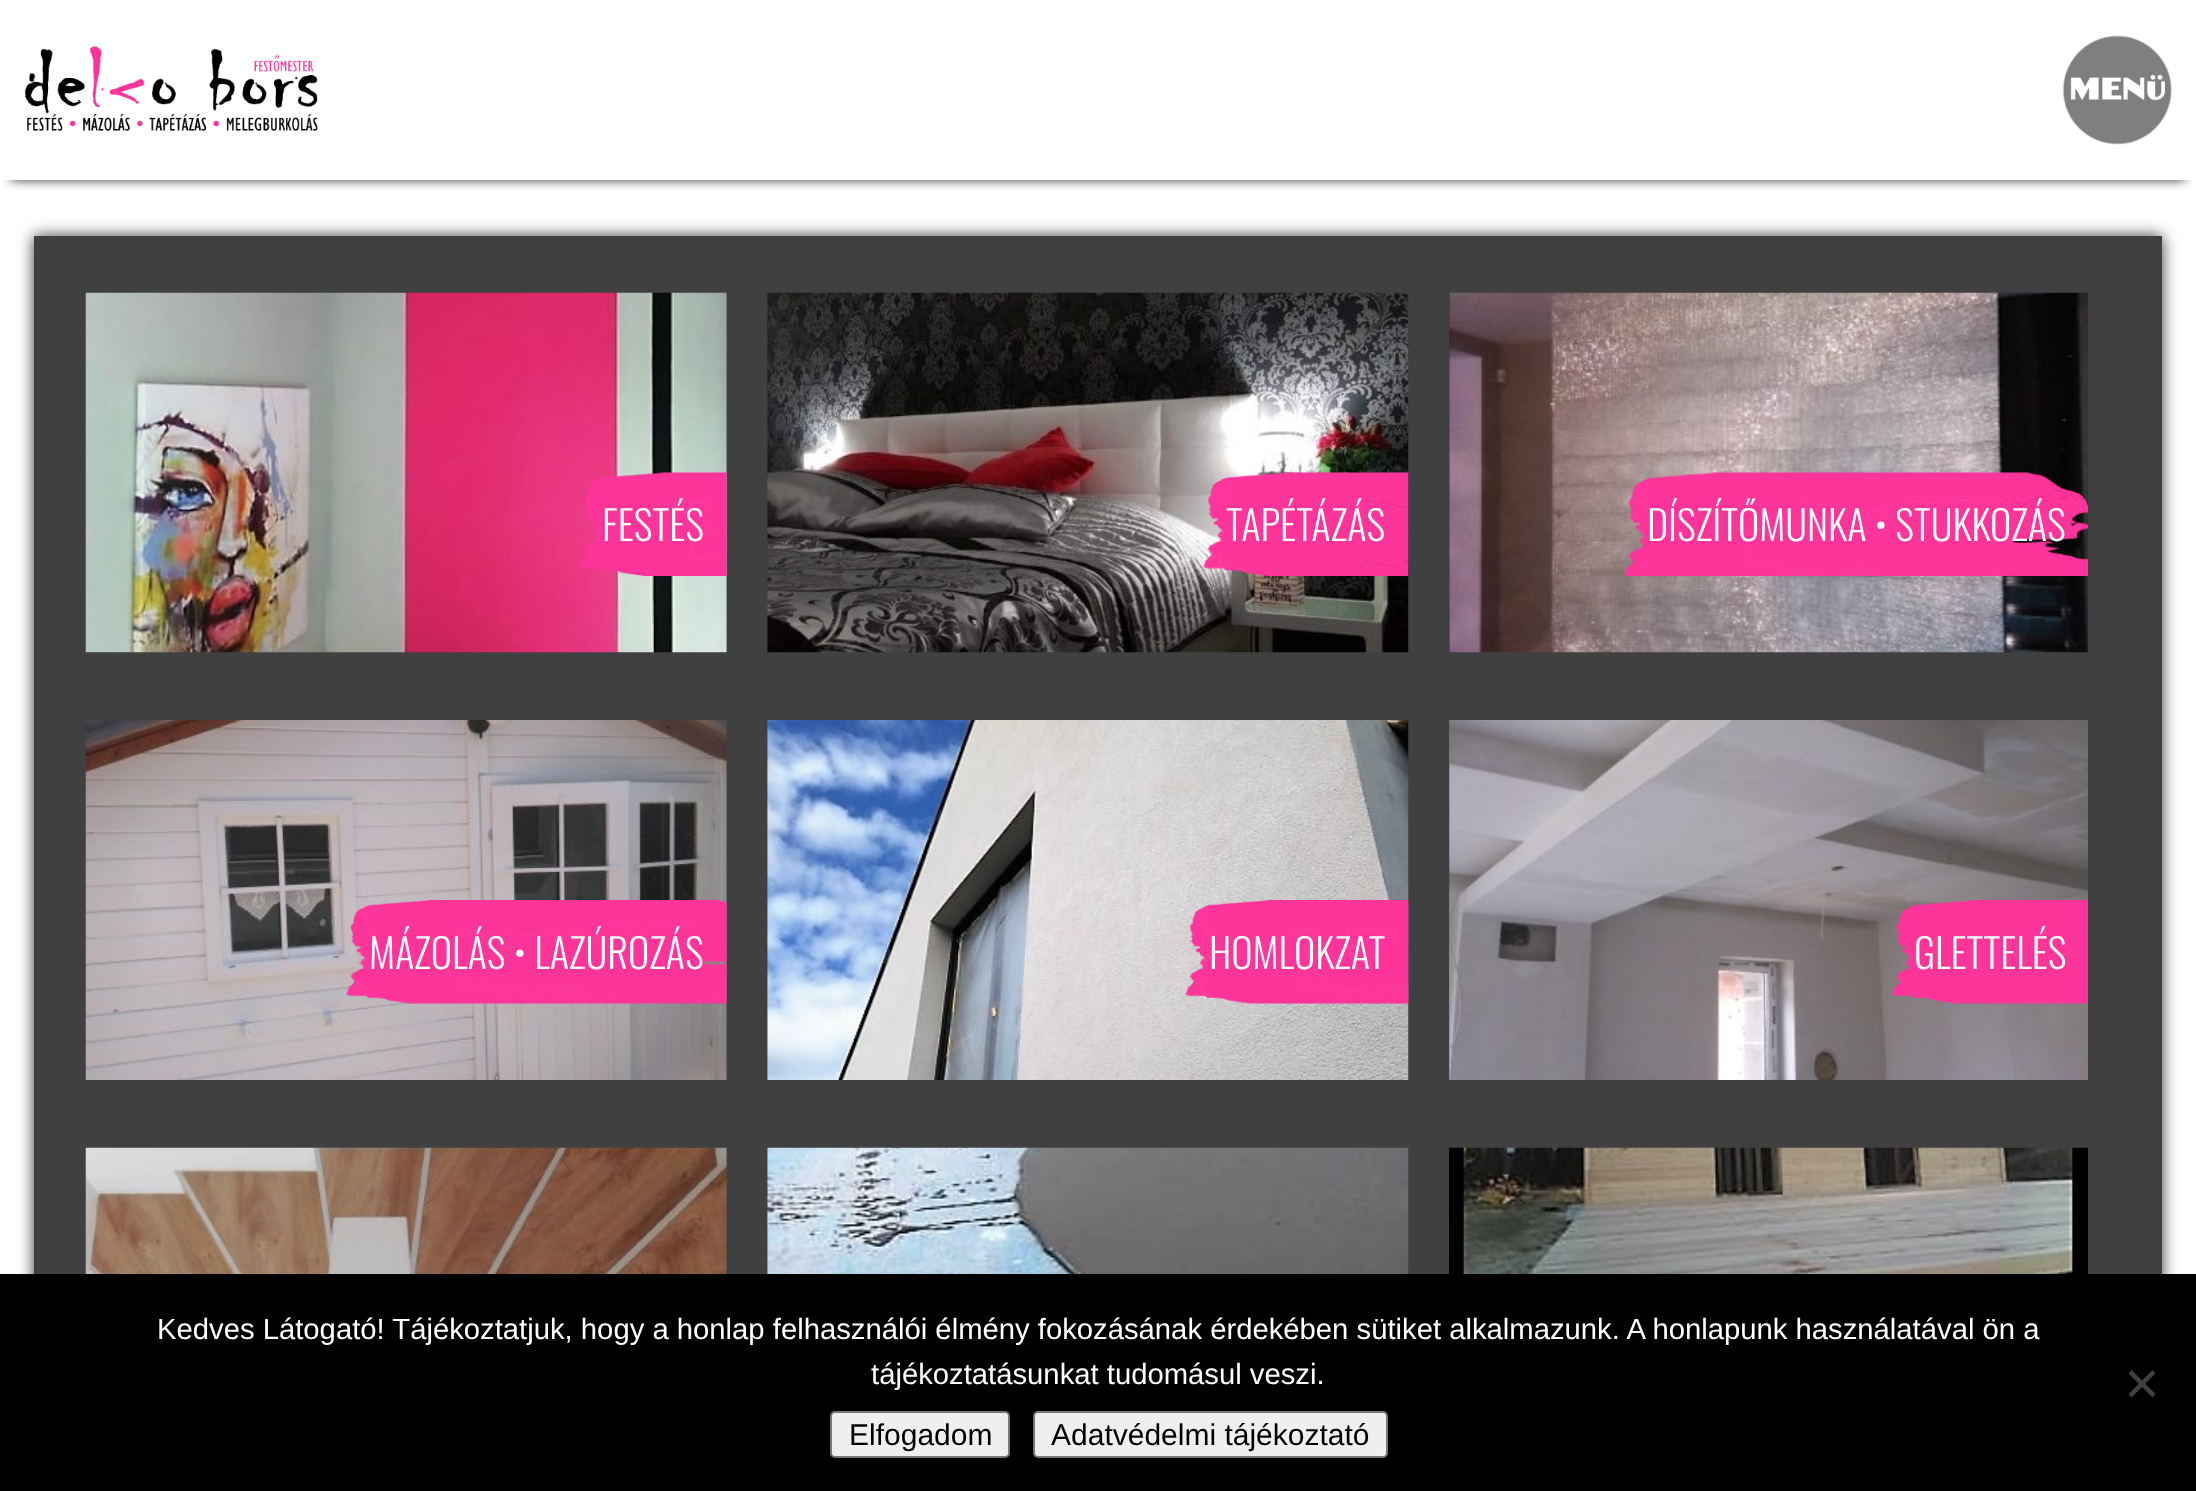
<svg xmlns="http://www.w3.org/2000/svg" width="2196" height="1491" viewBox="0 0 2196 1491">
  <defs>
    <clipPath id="clip1"><path d="M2 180h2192v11H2z"/></clipPath>
    <clipPath id="clip2"><path d="M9 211H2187V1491H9ZM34 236H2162V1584H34Z" clip-rule="evenodd"/></clipPath>
  </defs>
  <rect width="100%" height="100%" fill="#fff"/>
  <g clip-path="url(#clip1)">
    <path d="M11 23h2174v157H11z" fill="#333" filter="blur(5.5px)"/>
  </g>
  <image x="24" y="46" width="294" height="86" href="img/1.png"/>
  <image x="2062" y="35" width="110" height="110" href="img/2.png"/>
  <g clip-path="url(#clip2)">
    <path d="M34 236h2128v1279H34z" fill="#333" filter="blur(8px)"/>
  </g>
  <path d="M34 236h2128v1038H34z" fill="#000000bf"/>
  <image x="85" y="292" width="642" height="361" href="img/3.png"/>
  <image x="580" y="472" width="147" height="104" href="img/4.png"/>
  <image x="767" y="292" width="642" height="361" href="img/5.png"/>
  <image x="1203" y="472" width="206" height="104" href="img/6.png"/>
  <image x="1449" y="292" width="639" height="361" href="img/7.png"/>
  <image x="1624" y="472" width="464" height="104" href="img/8.png"/>
  <image x="85" y="720" width="642" height="360" href="img/9.png"/>
  <image x="346" y="900" width="381" height="104" href="img/10.png"/>
  <image x="767" y="720" width="642" height="360" href="img/11.png"/>
  <image x="1185" y="900" width="224" height="104" href="img/12.png"/>
  <image x="1449" y="720" width="639" height="360" href="img/13.png"/>
  <image x="1892" y="900" width="196" height="104" href="img/14.png"/>
  <image x="85" y="1147" width="642" height="127" href="img/15.png"/>
  <image x="767" y="1147" width="642" height="127" href="img/16.png"/>
  <image x="1449" y="1147" width="639" height="127" href="img/17.png"/>
  <path d="M0 1274h2196v217H0z" fill="#000"/>
  <path d="M2152.5 1370L2155.5 1373.5L2131.5 1397.5L2128.5 1394Z" fill="#404040"/>
  <path d="M2128.5 1373.5L2131.5 1370L2155.5 1394L2152.5 1397.5Z" fill="#404040"/>
  <rect x="831" y="1412" width="178" height="45" rx="4" fill="#efefef" stroke="#767676" stroke-width="2"/>
  <rect x="1034" y="1412" width="353" height="45" rx="4" fill="#efefef" stroke="#767676" stroke-width="2"/>
  <g font-family="Oswald" font-size="40.5" font-weight="300" fill="#fff">
    <text x="602" y="541">FESTÉS</text>
    <text x="1226" y="541">TAPÉTÁZÁS</text>
    <text x="1647" y="541">DÍSZÍTŐMUNKA • STUKKOZÁS</text>
    <text x="369" y="969">MÁZOLÁS • LAZÚROZÁS</text>
    <text x="1209" y="969">HOMLOKZAT</text>
    <text x="1914" y="969">GLETTELÉS</text>
  </g>
  <g font-family="Liberation Sans" font-size="29.25" fill="#fff">
    <text x="157" y="1339">Kedves Látogató! Tájékoztatjuk, hogy a honlap felhasználói élmény fokozásának érdekében sütiket alkalmazunk. A honlapunk használatával ön a</text>
    <text x="871" y="1384">tájékoztatásunkat tudomásul veszi.</text>
  </g>
  <g font-family="Liberation Sans" font-size="30" fill="#000">
    <text x="849" y="1445">Elfogadom</text>
    <text x="1051" y="1445">Adatvédelmi tájékoztató</text>
  </g>
</svg>
